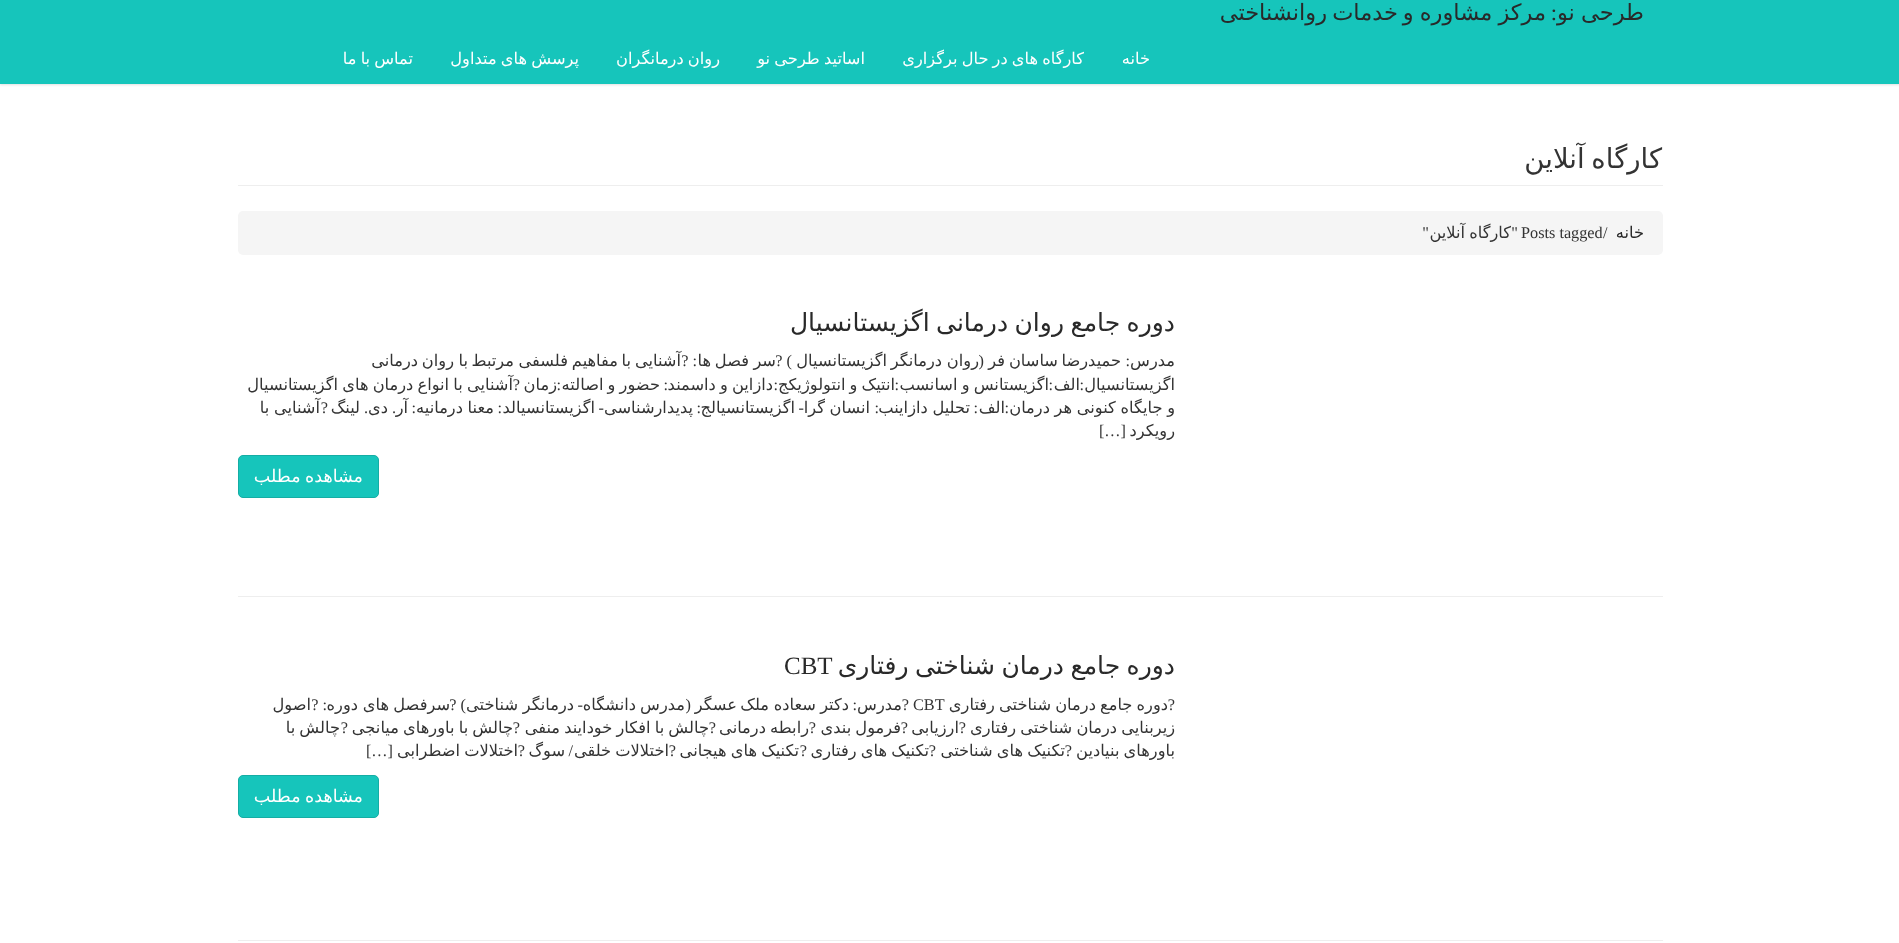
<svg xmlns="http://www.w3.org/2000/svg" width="1899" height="943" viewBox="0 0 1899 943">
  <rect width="100%" height="100%" fill="#fff"/>
  <path d="M0 1h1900v84H0z" fill="#0000001f" filter="blur(1px)"/>
  <path d="M0 0h1899v84H0z" fill="#16c5bb"/>
  <path d="M238 185h1425v1H238z" fill="#eee"/>
  <rect x="238" y="211" width="1425" height="44" rx="5" fill="#f5f5f5"/>
  <rect x="238.5" y="455.5" width="140" height="42" rx="4.5" fill="#16c5bb" stroke="#15ada4"/>
  <path d="M238 596h1425v1H238z" fill="#eee"/>
  <rect x="238.5" y="775.5" width="140" height="42" rx="4.5" fill="#16c5bb" stroke="#15ada4"/>
  <path d="M238 940h1425v1H238z" fill="#eee"/>
  <text x="1644" y="20" word-spacing="-1" font-family="DejaVu Sans" font-size="22.5" direction="rtl" fill="#292929">طرحی نو</text>
  <text x="1557" y="20" font-family="Liberation Serif" font-size="22.5" direction="rtl" fill="#292929">:</text>
  <g font-family="DejaVu Sans" font-size="22.5" direction="rtl" fill="#292929">
    <text x="1546" y="20" word-spacing="-1">مرکز مشاوره و</text>
    <text x="1398" y="20" word-spacing="-2">خدمات روانشناختی</text>
  </g>
  <g font-family="DejaVu Sans" font-size="16.25" direction="rtl" fill="#fff">
    <text x="1150" y="64">خانه</text>
    <text x="1084" y="64" word-spacing="-1">کارگاه های در حال برگزاری</text>
    <text x="865" y="64" word-spacing="-1">اساتید طرحی نو</text>
    <text x="720" y="64" word-spacing="-1">روان درمانگران</text>
    <text x="579" y="64" word-spacing="-1">پرسش های متداول</text>
    <text x="413" y="64" word-spacing="-1">تماس با ما</text>
  </g>
  <text x="1662" y="168" word-spacing="-2" font-family="DejaVu Sans" font-size="27.5" direction="rtl" fill="#333">کارگاه آنلاین</text>
  <text x="1644" y="238" font-family="DejaVu Sans" font-size="16.25" direction="rtl" fill="#292929">خانه</text>
  <g font-family="Liberation Serif" font-size="16.25" fill="#333">
    <text x="1603" y="238">/</text>
    <text x="1521" y="238">Posts tagged</text>
  </g>
  <text x="1518" y="238" font-family="Liberation Serif" font-size="16.25" direction="rtl" fill="#333">"</text>
  <text x="1511" y="238" word-spacing="-1" font-family="DejaVu Sans" font-size="16.25" direction="rtl" fill="#333">کارگاه آنلاین</text>
  <text x="1429" y="238" font-family="Liberation Serif" font-size="16.25" direction="rtl" fill="#333">"</text>
  <text x="1175" y="331" word-spacing="-1.5" font-family="DejaVu Sans" font-size="25" direction="rtl" fill="#292929">دوره جامع روان درمانی اگزیستانسیال</text>
  <text x="1175" y="366" font-family="DejaVu Sans" font-size="16.25" direction="rtl" fill="#333">مدرس</text>
  <text x="1130" y="366" font-family="Liberation Serif" font-size="16.25" direction="rtl" fill="#333">:</text>
  <g font-family="DejaVu Sans" font-size="16.25" direction="rtl" fill="#333">
    <text x="1121" y="366">حمیدرضا</text>
    <text x="1058" y="366">ساسان</text>
    <text x="1005" y="366">فر</text>
  </g>
  <text x="984" y="366" font-family="Liberation Serif" font-size="16.25" direction="rtl" fill="#333">(</text>
  <g font-family="DejaVu Sans" font-size="16.25" direction="rtl" fill="#333">
    <text x="979" y="366">روان</text>
    <text x="942" y="366">درمانگر</text>
    <text x="887" y="366">اگزیستانسیال</text>
  </g>
  <text x="792" y="366" font-family="Liberation Serif" font-size="16.25" direction="rtl" fill="#333">) ?</text>
  <g font-family="DejaVu Sans" font-size="16.25" direction="rtl" fill="#333">
    <text x="776" y="366">سر</text>
    <text x="749" y="366">فصل</text>
    <text x="711" y="366">ها</text>
    <text x="681" y="366">آشنایی</text>
  </g>
  <text x="697" y="366" font-family="Liberation Serif" font-size="16.25" direction="rtl" fill="#333">: ?</text>
  <g font-family="DejaVu Sans" font-size="16.25" direction="rtl" fill="#333">
    <text x="631" y="366">با</text>
    <text x="618" y="366">مفاهیم</text>
    <text x="568" y="366">فلسفی</text>
    <text x="514" y="366">مرتبط</text>
    <text x="468" y="366">با</text>
    <text x="454" y="366">روان</text>
    <text x="418" y="366">درمانی</text>
    <text x="1175" y="390">اگزیستانسیال</text>
  </g>
  <text x="1084" y="390" font-family="Liberation Serif" font-size="16.25" direction="rtl" fill="#333">:</text>
  <text x="1080" y="390" font-family="DejaVu Sans" font-size="16.25" direction="rtl" fill="#333">الف</text>
  <text x="1053" y="390" font-family="Liberation Serif" font-size="16.25" direction="rtl" fill="#333">:</text>
  <text x="1049" y="390" word-spacing="-1" font-family="DejaVu Sans" font-size="16.25" direction="rtl" fill="#333">اگزیستانس و اسانسب</text>
  <text x="899" y="390" font-family="Liberation Serif" font-size="16.25" direction="rtl" fill="#333">:</text>
  <text x="895" y="390" word-spacing="-1" font-family="DejaVu Sans" font-size="16.25" direction="rtl" fill="#333">انتیک و انتولوژیکج</text>
  <text x="778" y="390" font-family="Liberation Serif" font-size="16.25" direction="rtl" fill="#333">:</text>
  <text x="773" y="390" word-spacing="-1" font-family="DejaVu Sans" font-size="16.25" direction="rtl" fill="#333">دازاین و داسمند</text>
  <text x="668" y="390" font-family="Liberation Serif" font-size="16.25" direction="rtl" fill="#333">:</text>
  <text x="660" y="390" word-spacing="-1" font-family="DejaVu Sans" font-size="16.25" direction="rtl" fill="#333">حضور و اصالته</text>
  <text x="561" y="390" font-family="Liberation Serif" font-size="16.25" direction="rtl" fill="#333">:</text>
  <text x="557" y="390" font-family="DejaVu Sans" font-size="16.25" direction="rtl" fill="#333">زمان</text>
  <text x="520" y="390" font-family="Liberation Serif" font-size="16.25" direction="rtl" fill="#333">?</text>
  <g font-family="DejaVu Sans" font-size="16.25" direction="rtl" fill="#333">
    <text x="513" y="390" word-spacing="-1">آشنایی با انواع درمان های اگزیستانسیال</text>
    <text x="1175" y="413" word-spacing="-0.5">و جایگاه کنونی هر درمان</text>
  </g>
  <text x="1009" y="413" font-family="Liberation Serif" font-size="16.25" direction="rtl" fill="#333">:</text>
  <text x="1005" y="413" font-family="DejaVu Sans" font-size="16.25" direction="rtl" fill="#333">الف</text>
  <text x="978" y="413" font-family="Liberation Serif" font-size="16.25" direction="rtl" fill="#333">:</text>
  <text x="970" y="413" word-spacing="-0.5" font-family="DejaVu Sans" font-size="16.25" direction="rtl" fill="#333">تحلیل دازاینب</text>
  <text x="879" y="413" font-family="Liberation Serif" font-size="16.25" direction="rtl" fill="#333">:</text>
  <text x="870" y="413" word-spacing="-0.5" font-family="DejaVu Sans" font-size="16.25" direction="rtl" fill="#333">انسان گرا</text>
  <text x="804" y="413" font-family="Liberation Serif" font-size="16.25" direction="rtl" fill="#333">-</text>
  <text x="795" y="413" font-family="DejaVu Sans" font-size="16.25" direction="rtl" fill="#333">اگزیستانسیالج</text>
  <text x="701" y="413" font-family="Liberation Serif" font-size="16.25" direction="rtl" fill="#333">:</text>
  <text x="693" y="413" font-family="DejaVu Sans" font-size="16.25" direction="rtl" fill="#333">پدیدارشناسی</text>
  <text x="604" y="413" font-family="Liberation Serif" font-size="16.25" direction="rtl" fill="#333">-</text>
  <text x="595" y="413" font-family="DejaVu Sans" font-size="16.25" direction="rtl" fill="#333">اگزیستانسیالد</text>
  <text x="502" y="413" font-family="Liberation Serif" font-size="16.25" direction="rtl" fill="#333">:</text>
  <text x="494" y="413" word-spacing="-0.5" font-family="DejaVu Sans" font-size="16.25" direction="rtl" fill="#333">معنا درمانیه</text>
  <text x="416" y="413" font-family="Liberation Serif" font-size="16.25" direction="rtl" fill="#333">:</text>
  <g font-family="DejaVu Sans" font-size="16.25" direction="rtl" fill="#333">
    <text x="388" y="413">دی</text>
    <text x="360" y="413">لینگ</text>
  </g>
  <text x="328" y="413" font-family="Liberation Serif" font-size="16.25" direction="rtl" fill="#333">?</text>
  <text x="320" y="413" word-spacing="-0.5" font-family="DejaVu Sans" font-size="16.25" direction="rtl" fill="#333">آشنایی با</text>
  <text x="396" y="413" font-family="Liberation Serif" font-size="16.25" direction="rtl" fill="#333">.</text>
  <text x="408" y="413" font-family="DejaVu Sans" font-size="16.25" direction="rtl" fill="#333">آر</text>
  <text x="368" y="413" font-family="Liberation Serif" font-size="16.25" direction="rtl" fill="#333">.</text>
  <text x="1175" y="436" font-family="DejaVu Sans" font-size="16.25" direction="rtl" fill="#333">رویکرد</text>
  <text x="1126" y="436" font-family="Liberation Serif" font-size="16.25" direction="rtl" fill="#333">[…]</text>
  <text x="363" y="482" word-spacing="-1" font-family="DejaVu Sans" font-size="17.5" direction="rtl" fill="#fff">مشاهده مطلب</text>
  <text x="1175" y="674" word-spacing="-1.5" font-family="DejaVu Sans" font-size="25" direction="rtl" fill="#292929">دوره جامع درمان شناختی رفتاری</text>
  <text x="784" y="674" font-family="Liberation Serif" font-size="25" fill="#292929">CBT</text>
  <text x="1175" y="710" font-family="Liberation Serif" font-size="16.25" direction="rtl" fill="#333">?</text>
  <text x="1168" y="710" word-spacing="-1" font-family="DejaVu Sans" font-size="16.25" direction="rtl" fill="#333">دوره جامع درمان شناختی رفتاری</text>
  <text x="913" y="710" font-family="Liberation Serif" font-size="16.25" fill="#333">CBT</text>
  <text x="909" y="710" font-family="Liberation Serif" font-size="16.25" direction="rtl" fill="#333">?</text>
  <text x="902" y="710" font-family="DejaVu Sans" font-size="16.25" direction="rtl" fill="#333">مدرس</text>
  <text x="857" y="710" font-family="Liberation Serif" font-size="16.25" direction="rtl" fill="#333">:</text>
  <g font-family="DejaVu Sans" font-size="16.25" direction="rtl" fill="#333">
    <text x="849" y="710">دکتر</text>
    <text x="816" y="710">سعاده</text>
    <text x="769" y="710">ملک</text>
    <text x="737" y="710">عسگر</text>
  </g>
  <text x="691" y="710" font-family="Liberation Serif" font-size="16.25" direction="rtl" fill="#333">(</text>
  <g font-family="DejaVu Sans" font-size="16.25" direction="rtl" fill="#333">
    <text x="685" y="710">مدرس</text>
    <text x="636" y="710">دانشگاه</text>
  </g>
  <text x="583" y="710" font-family="Liberation Serif" font-size="16.25" direction="rtl" fill="#333">-</text>
  <g font-family="DejaVu Sans" font-size="16.25" direction="rtl" fill="#333">
    <text x="574" y="710">درمانگر</text>
    <text x="518" y="710">شناختی</text>
  </g>
  <text x="466" y="710" font-family="Liberation Serif" font-size="16.25" direction="rtl" fill="#333">) ?</text>
  <g font-family="DejaVu Sans" font-size="16.25" direction="rtl" fill="#333">
    <text x="450" y="710">سرفصل</text>
    <text x="389" y="710">های</text>
    <text x="358" y="710">دوره</text>
  </g>
  <text x="327" y="710" font-family="Liberation Serif" font-size="16.25" direction="rtl" fill="#333">: ?</text>
  <g font-family="DejaVu Sans" font-size="16.25" direction="rtl" fill="#333">
    <text x="311" y="710">اصول</text>
    <text x="1175" y="733" word-spacing="-1">زیربنایی درمان شناختی رفتاری</text>
  </g>
  <text x="966" y="733" font-family="Liberation Serif" font-size="16.25" direction="rtl" fill="#333">?</text>
  <text x="959" y="733" font-family="DejaVu Sans" font-size="16.25" direction="rtl" fill="#333">ارزیابی</text>
  <text x="908" y="733" font-family="Liberation Serif" font-size="16.25" direction="rtl" fill="#333">?</text>
  <text x="901" y="733" word-spacing="-1" font-family="DejaVu Sans" font-size="16.25" direction="rtl" fill="#333">فرمول بندی</text>
  <text x="816" y="733" font-family="Liberation Serif" font-size="16.25" direction="rtl" fill="#333">?</text>
  <text x="809" y="733" word-spacing="-1" font-family="DejaVu Sans" font-size="16.25" direction="rtl" fill="#333">رابطه درمانی</text>
  <text x="716" y="733" font-family="Liberation Serif" font-size="16.25" direction="rtl" fill="#333">?</text>
  <text x="709" y="733" word-spacing="-1" font-family="DejaVu Sans" font-size="16.25" direction="rtl" fill="#333">چالش با افکار خودایند منفی</text>
  <text x="520" y="733" font-family="Liberation Serif" font-size="16.25" direction="rtl" fill="#333">?</text>
  <text x="513" y="733" word-spacing="-1" font-family="DejaVu Sans" font-size="16.25" direction="rtl" fill="#333">چالش با باورهای میانجی</text>
  <text x="348" y="733" font-family="Liberation Serif" font-size="16.25" direction="rtl" fill="#333">?</text>
  <g font-family="DejaVu Sans" font-size="16.25" direction="rtl" fill="#333">
    <text x="340" y="733" word-spacing="-1">چالش با</text>
    <text x="1175" y="756" word-spacing="-1">باورهای بنیادین</text>
  </g>
  <text x="1072" y="756" font-family="Liberation Serif" font-size="16.25" direction="rtl" fill="#333">?</text>
  <text x="1065" y="756" word-spacing="-1" font-family="DejaVu Sans" font-size="16.25" direction="rtl" fill="#333">تکنیک های شناختی</text>
  <text x="936" y="756" font-family="Liberation Serif" font-size="16.25" direction="rtl" fill="#333">?</text>
  <text x="929" y="756" word-spacing="-1" font-family="DejaVu Sans" font-size="16.25" direction="rtl" fill="#333">تکنیک های رفتاری</text>
  <text x="807" y="756" font-family="Liberation Serif" font-size="16.25" direction="rtl" fill="#333">?</text>
  <text x="799" y="756" word-spacing="-1" font-family="DejaVu Sans" font-size="16.25" direction="rtl" fill="#333">تکنیک های هیجانی</text>
  <text x="676" y="756" font-family="Liberation Serif" font-size="16.25" direction="rtl" fill="#333">?</text>
  <text x="669" y="756" word-spacing="-1" font-family="DejaVu Sans" font-size="16.25" direction="rtl" fill="#333">اختلالات خلقی</text>
  <text x="573" y="756" font-family="Liberation Serif" font-size="16.25" direction="rtl" fill="#333">/</text>
  <text x="565" y="756" font-family="DejaVu Sans" font-size="16.25" direction="rtl" fill="#333">سوگ</text>
  <text x="525" y="756" font-family="Liberation Serif" font-size="16.25" direction="rtl" fill="#333">?</text>
  <text x="518" y="756" word-spacing="-1" font-family="DejaVu Sans" font-size="16.25" direction="rtl" fill="#333">اختلالات اضطرابی</text>
  <text x="393" y="756" font-family="Liberation Serif" font-size="16.25" direction="rtl" fill="#333">[…]</text>
  <text x="363" y="802" word-spacing="-1" font-family="DejaVu Sans" font-size="17.5" direction="rtl" fill="#fff">مشاهده مطلب</text>
</svg>
